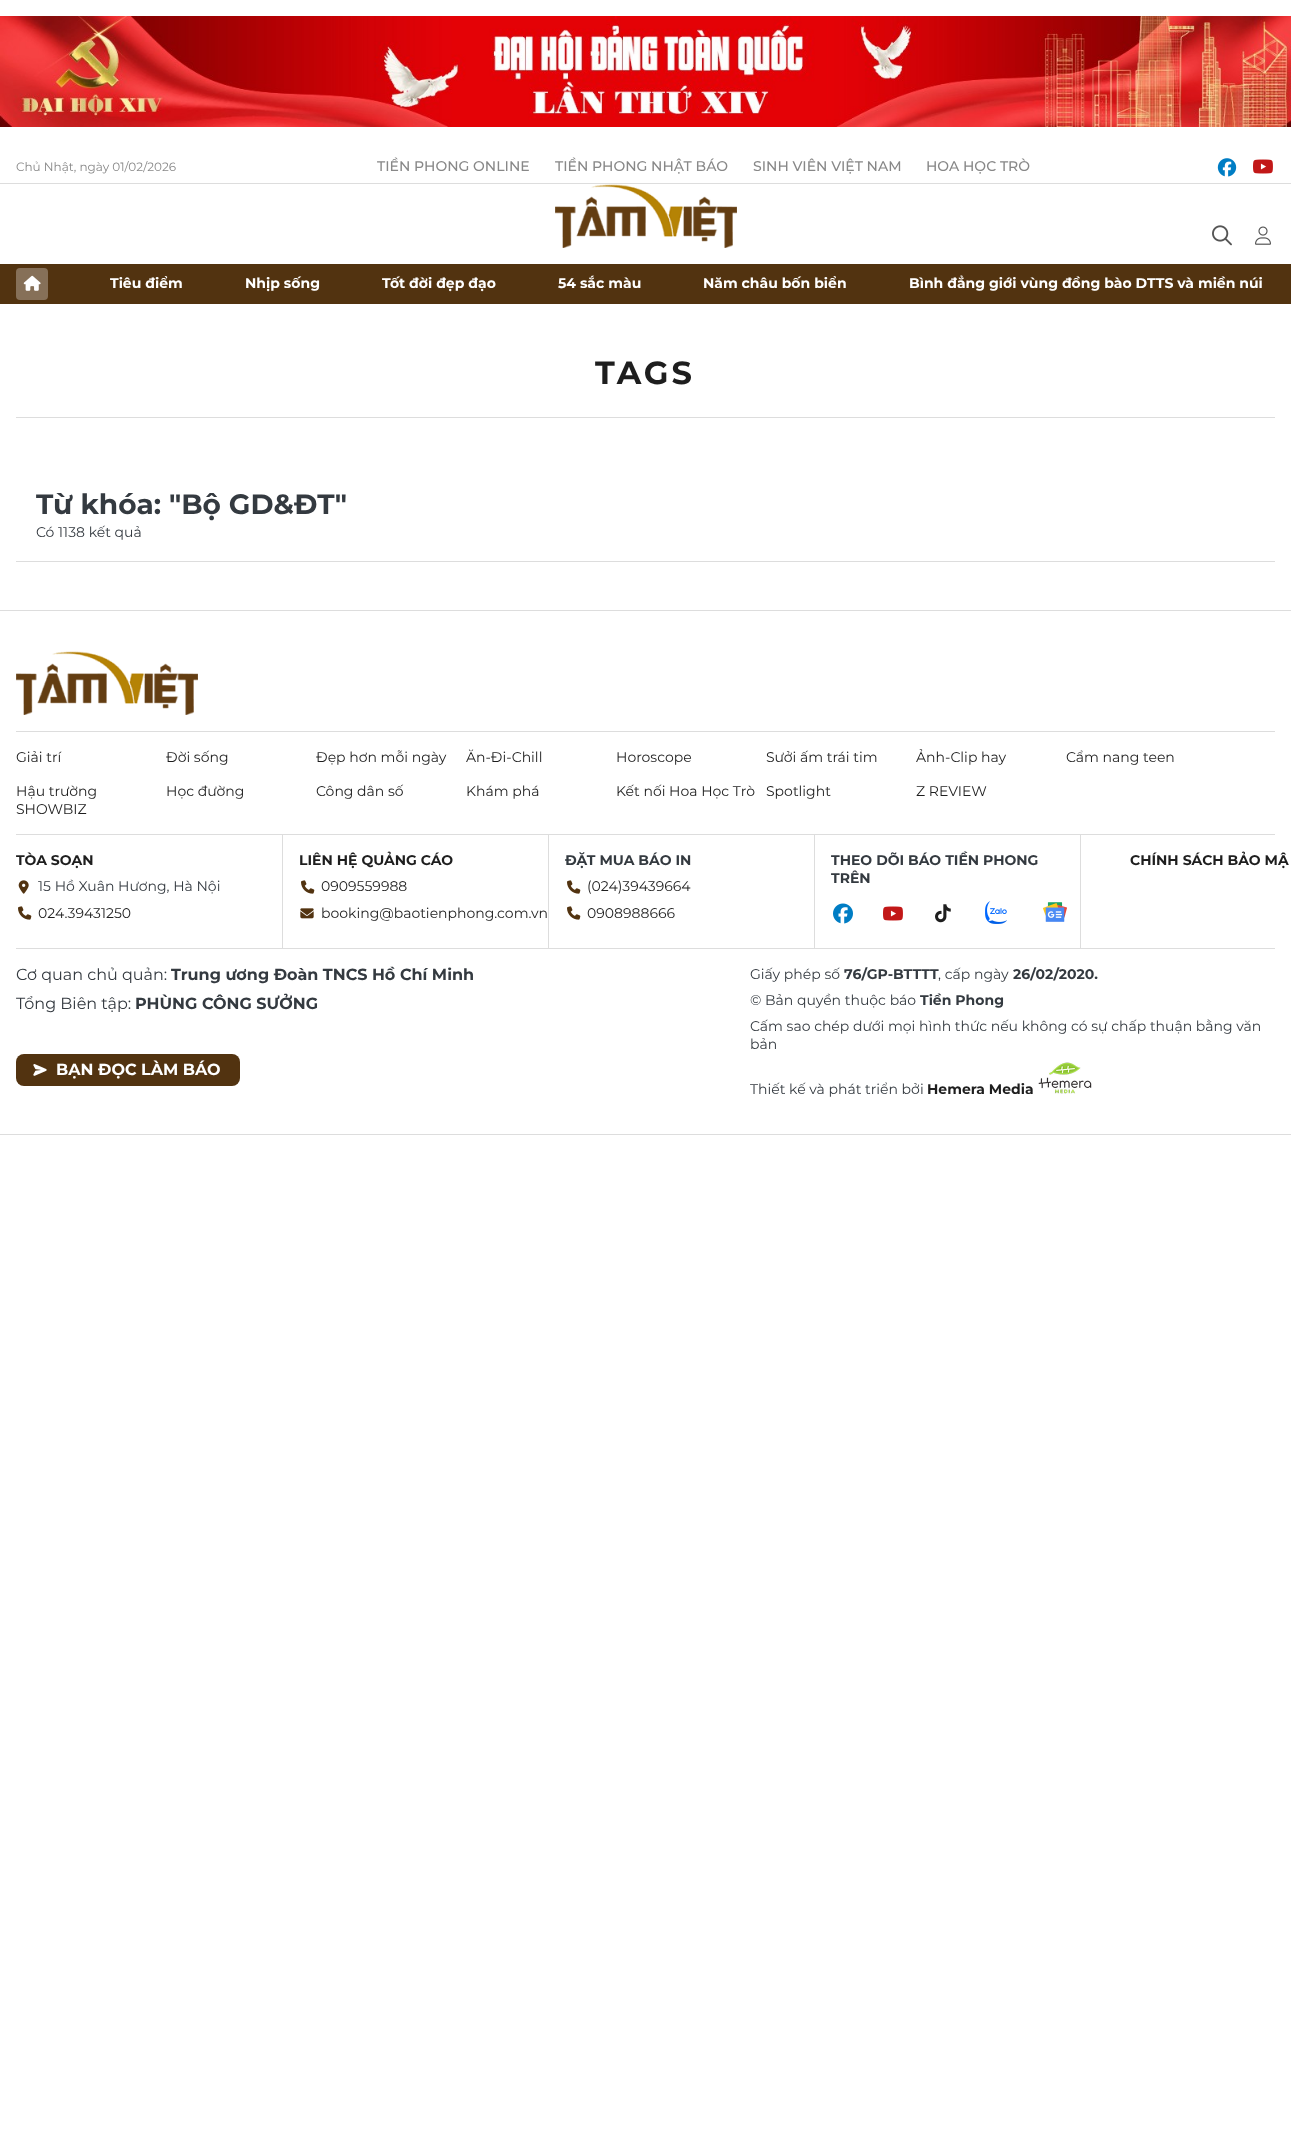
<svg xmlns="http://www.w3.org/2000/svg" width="1291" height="2153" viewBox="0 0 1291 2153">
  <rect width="100%" height="100%" fill="#fff"/>
  <image x="0" y="16" width="1291" height="111" href="img/1.png"/>
  <path d="M0 183h1291v1H0z" fill="#ddd"/>
  <image x="1217" y="158" width="20" height="19" href="img/2.png"/>
  <image x="1253" y="159" width="20" height="15" href="img/3.png"/>
  <image x="555" y="184" width="182" height="64" href="img/4.png"/>
  <image x="1212" y="225" width="20" height="21" href="img/5.png"/>
  <image x="1255" y="226" width="16" height="19" href="img/6.png"/>
  <path d="M0 264h1291v40H0z" fill="#523310"/>
  <rect x="16" y="268" width="32" height="32" rx="4" fill="#867058"/>
  <image x="23" y="275" width="18" height="16" href="img/7.png"/>
  <path d="M16 417h1259v1H16z" fill="#ddd"/>
  <path d="M16 561h1259v1H16z" fill="#ddd"/>
  <path d="M0 610h1291v1H0z" fill="#ddd"/>
  <path d="M0 1134h1291v1H0z" fill="#ddd"/>
  <path d="M16 731h1259v1H16z" fill="#ddd"/>
  <image x="16" y="651" width="182" height="64" href="img/4.png"/>
  <path d="M16 834h1259v1H16z" fill="#ddd"/>
  <path d="M16 948h1259v1H16z" fill="#ddd"/>
  <image x="18" y="880" width="11" height="14" href="img/8.png"/>
  <image x="18" y="906" width="14" height="14" href="img/9.png"/>
  <path d="M282 835h1v113H282z" fill="#ddd"/>
  <image x="301" y="880" width="14" height="14" href="img/9.png"/>
  <image x="300" y="908" width="14" height="11" href="img/10.png"/>
  <path d="M548 835h1v113H548z" fill="#ddd"/>
  <image x="567" y="880" width="14" height="14" href="img/9.png"/>
  <image x="567" y="906" width="14" height="14" href="img/9.png"/>
  <path d="M814 835h1v113H814z" fill="#ddd"/>
  <image x="833" y="903" width="20" height="21" href="img/11.png"/>
  <image x="883" y="906" width="20" height="15" href="img/3.png"/>
  <image x="935" y="904" width="16" height="19" href="img/12.png"/>
  <image x="985" y="901" width="22" height="23" href="img/13.png"/>
  <image x="1043" y="902" width="24" height="20" href="img/14.png"/>
  <path d="M1080 835h1v113H1080z" fill="#ddd"/>
  <rect x="16" y="1054" width="224" height="32" rx="8" fill="#523310"/>
  <image x="33" y="1064" width="14" height="12" href="img/15.png"/>
  <image x="1038" y="1062" width="54" height="32" href="img/16.png"/>
  <text x="16" y="171" font-family="Montserrat" font-size="12" fill="#888">Chủ Nhật, ngày 01/02/2026</text>
  <g font-family="Montserrat" font-size="14" font-weight="500" fill="#888">
    <text x="377" y="171">TIỀN PHONG ONLINE</text>
    <text x="555" y="171">TIỀN PHONG NHẬT BÁO</text>
    <text x="753" y="171">SINH VIÊN VIỆT NAM</text>
    <text x="926" y="171">HOA HỌC TRÒ</text>
  </g>
  <g font-family="Montserrat" font-size="14" font-weight="bold" fill="#fff">
    <text x="110" y="288">Tiêu điểm</text>
    <text x="245" y="288">Nhịp sống</text>
    <text x="382" y="288">Tốt đời đẹp đạo</text>
    <text x="558" y="288">54 sắc màu</text>
    <text x="703" y="288">Năm châu bốn biển</text>
    <text x="909" y="288">Bình đẳng giới vùng đồng bào DTTS và miền núi</text>
  </g>
  <text x="595" y="384" font-family="Montserrat" font-size="32" font-weight="bold" letter-spacing="3" fill="#1e1e1e">TAGS</text>
  <text x="36" y="514" font-family="Montserrat" font-size="28" font-weight="bold" fill="#343a40">Từ khóa: "Bộ GD&amp;ĐT"</text>
  <text x="36" y="537" font-family="Montserrat" font-size="14" fill="#343a40">Có 1138 kết quả</text>
  <g font-family="Montserrat" font-size="14" fill="#1e1e1e">
    <text x="16" y="762">Giải trí</text>
    <text x="166" y="762">Đời sống</text>
    <text x="316" y="762">Đẹp hơn mỗi ngày</text>
    <text x="466" y="762">Ăn-Đi-Chill</text>
    <text x="616" y="762">Horoscope</text>
    <text x="766" y="762">Sưởi ấm trái tim</text>
    <text x="916" y="762">Ảnh-Clip hay</text>
    <text x="1066" y="762">Cẩm nang teen</text>
    <text x="16" y="796">Hậu trường</text>
    <text x="16" y="814">SHOWBIZ</text>
    <text x="166" y="796">Học đường</text>
    <text x="316" y="796">Công dân số</text>
    <text x="466" y="796">Khám phá</text>
    <text x="616" y="796">Kết nối Hoa Học Trò</text>
    <text x="766" y="796">Spotlight</text>
    <text x="916" y="796">Z REVIEW</text>
  </g>
  <text x="16" y="865" font-family="Montserrat" font-size="14" font-weight="bold" fill="#1e1e1e">TÒA SOẠN</text>
  <text x="38" y="891" font-family="Montserrat" font-size="14" fill="#343a40">15 Hồ Xuân Hương, Hà Nội</text>
  <text x="38" y="918" font-family="Montserrat" font-size="14" fill="#1e1e1e">024.39431250</text>
  <text x="299" y="865" font-family="Montserrat" font-size="14" font-weight="bold" fill="#1e1e1e">LIÊN HỆ QUẢNG CÁO</text>
  <g font-family="Montserrat" font-size="14" fill="#1e1e1e">
    <text x="321" y="891">0909559988</text>
    <text x="321" y="918">booking@baotienphong.com.vn</text>
  </g>
  <text x="565" y="865" font-family="Montserrat" font-size="14" font-weight="bold" fill="#343a40">ĐẶT MUA BÁO IN</text>
  <g font-family="Montserrat" font-size="14" fill="#1e1e1e">
    <text x="587" y="891">(024)39439664</text>
    <text x="587" y="918">0908988666</text>
  </g>
  <g font-family="Montserrat" font-size="14" font-weight="bold" fill="#343a40">
    <text x="831" y="865">THEO DÕI BÁO TIỀN PHONG</text>
    <text x="831" y="883">TRÊN</text>
  </g>
  <text x="1130" y="865" font-family="Montserrat" font-size="14" font-weight="bold" fill="#1e1e1e">CHÍNH SÁCH BẢO MẬ</text>
  <text x="16" y="980" font-family="Montserrat" font-size="16" fill="#343a40">Cơ quan chủ quản:</text>
  <text x="171" y="980" font-family="Montserrat" font-size="16" font-weight="bold" fill="#343a40">Trung ương Đoàn TNCS Hồ Chí Minh</text>
  <text x="16" y="1009" font-family="Montserrat" font-size="16" fill="#343a40">Tổng Biên tập:</text>
  <text x="135" y="1009" font-family="Montserrat" font-size="16" font-weight="bold" fill="#343a40">PHÙNG CÔNG SƯỞNG</text>
  <text x="56" y="1075" font-family="Montserrat" font-size="16" font-weight="bold" fill="#fff">BẠN ĐỌC LÀM BÁO</text>
  <text x="750" y="979" font-family="Montserrat" font-size="14" fill="#343a40">Giấy phép số</text>
  <text x="844" y="979" font-family="Montserrat" font-size="14" font-weight="bold" fill="#343a40">76/GP-BTTTT</text>
  <text x="938" y="979" font-family="Montserrat" font-size="14" fill="#343a40">, cấp ngày</text>
  <text x="1013" y="979" font-family="Montserrat" font-size="14" font-weight="bold" fill="#343a40">26/02/2020.</text>
  <text x="750" y="1005" font-family="Montserrat" font-size="14" fill="#343a40">© Bản quyền thuộc báo</text>
  <text x="920" y="1005" font-family="Montserrat" font-size="14" font-weight="bold" fill="#343a40">Tiền Phong</text>
  <g font-family="Montserrat" font-size="14" fill="#343a40">
    <text x="750" y="1031">Cấm sao chép dưới mọi hình thức nếu không có sự chấp thuận bằng văn</text>
    <text x="750" y="1049">bản</text>
    <text x="750" y="1094">Thiết kế và phát triển bởi</text>
  </g>
  <text x="927" y="1094" font-family="Montserrat" font-size="14" font-weight="bold" fill="#1e1e1e">Hemera Media</text>
</svg>
